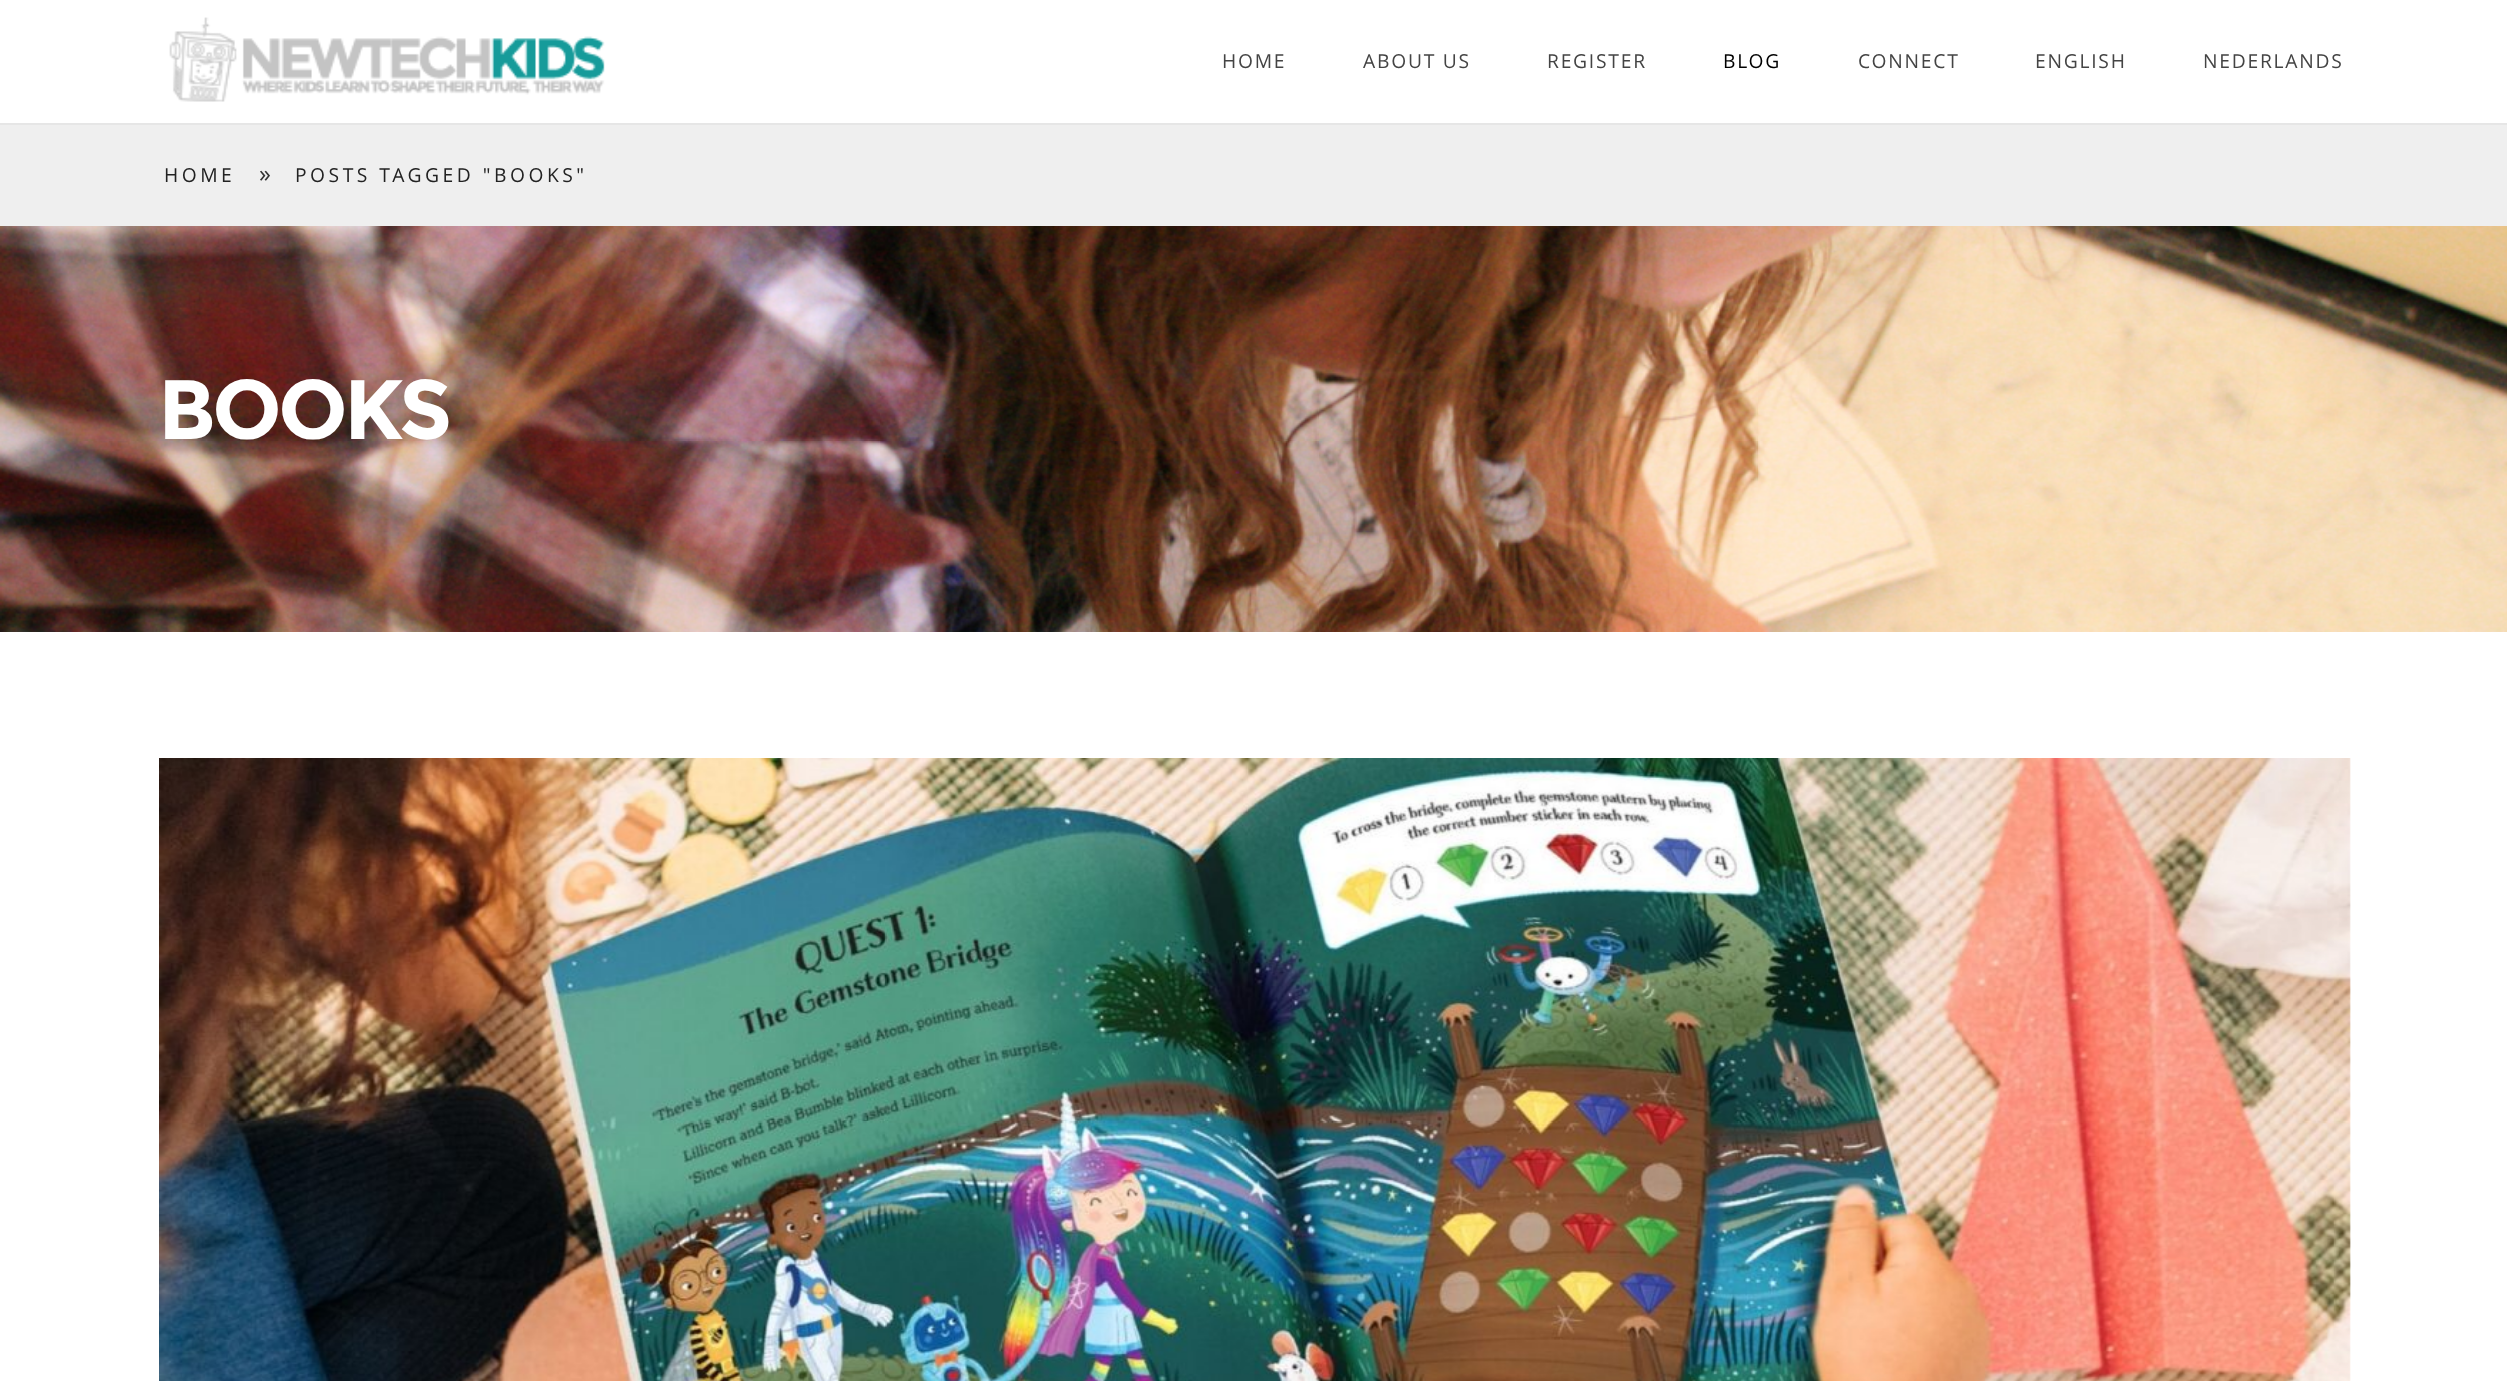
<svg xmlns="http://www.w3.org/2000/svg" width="2507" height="1381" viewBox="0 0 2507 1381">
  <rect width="100%" height="100%" fill="#fff"/>
  <path d="M0 123h2507v2H0z" fill="#e6e6e6"/>
  <image x="169" y="17" width="436" height="85" href="img/1.png"/>
  <image x="0" y="226" width="2507" height="406" href="img/2.png"/>
  <path d="M0 125h2507v101H0z" fill="#efefef"/>
  <image x="159" y="758" width="2192" height="623" href="img/3.png"/>
  <g font-family="Open Sans" font-size="19.25" letter-spacing="1.75" fill="#444">
    <text x="1222" y="68">HOME</text>
    <text x="1363" y="68">ABOUT US</text>
    <text x="1547" y="68">REGISTER</text>
  </g>
  <text x="1723" y="68" font-family="Open Sans" font-size="19.25" letter-spacing="1.75" fill="#000">BLOG</text>
  <g font-family="Open Sans" font-size="19.25" letter-spacing="1.75" fill="#444">
    <text x="1858" y="68">CONNECT</text>
    <text x="2035" y="68">ENGLISH</text>
    <text x="2203" y="68">NEDERLANDS</text>
  </g>
  <text x="164" y="182" font-family="Open Sans" font-size="19.25" letter-spacing="3.5" fill="#222">HOME</text>
  <text x="259" y="182" font-family="Open Sans" font-size="24" fill="#333">»</text>
  <text x="295" y="182" font-family="Open Sans" font-size="19.25" letter-spacing="3.5" fill="#222">POSTS TAGGED "BOOKS"</text>
  <text x="158" y="439" font-family="Montserrat" font-size="84" font-weight="bold" letter-spacing="-3.5" fill="#fff">BOOKS</text>
</svg>
